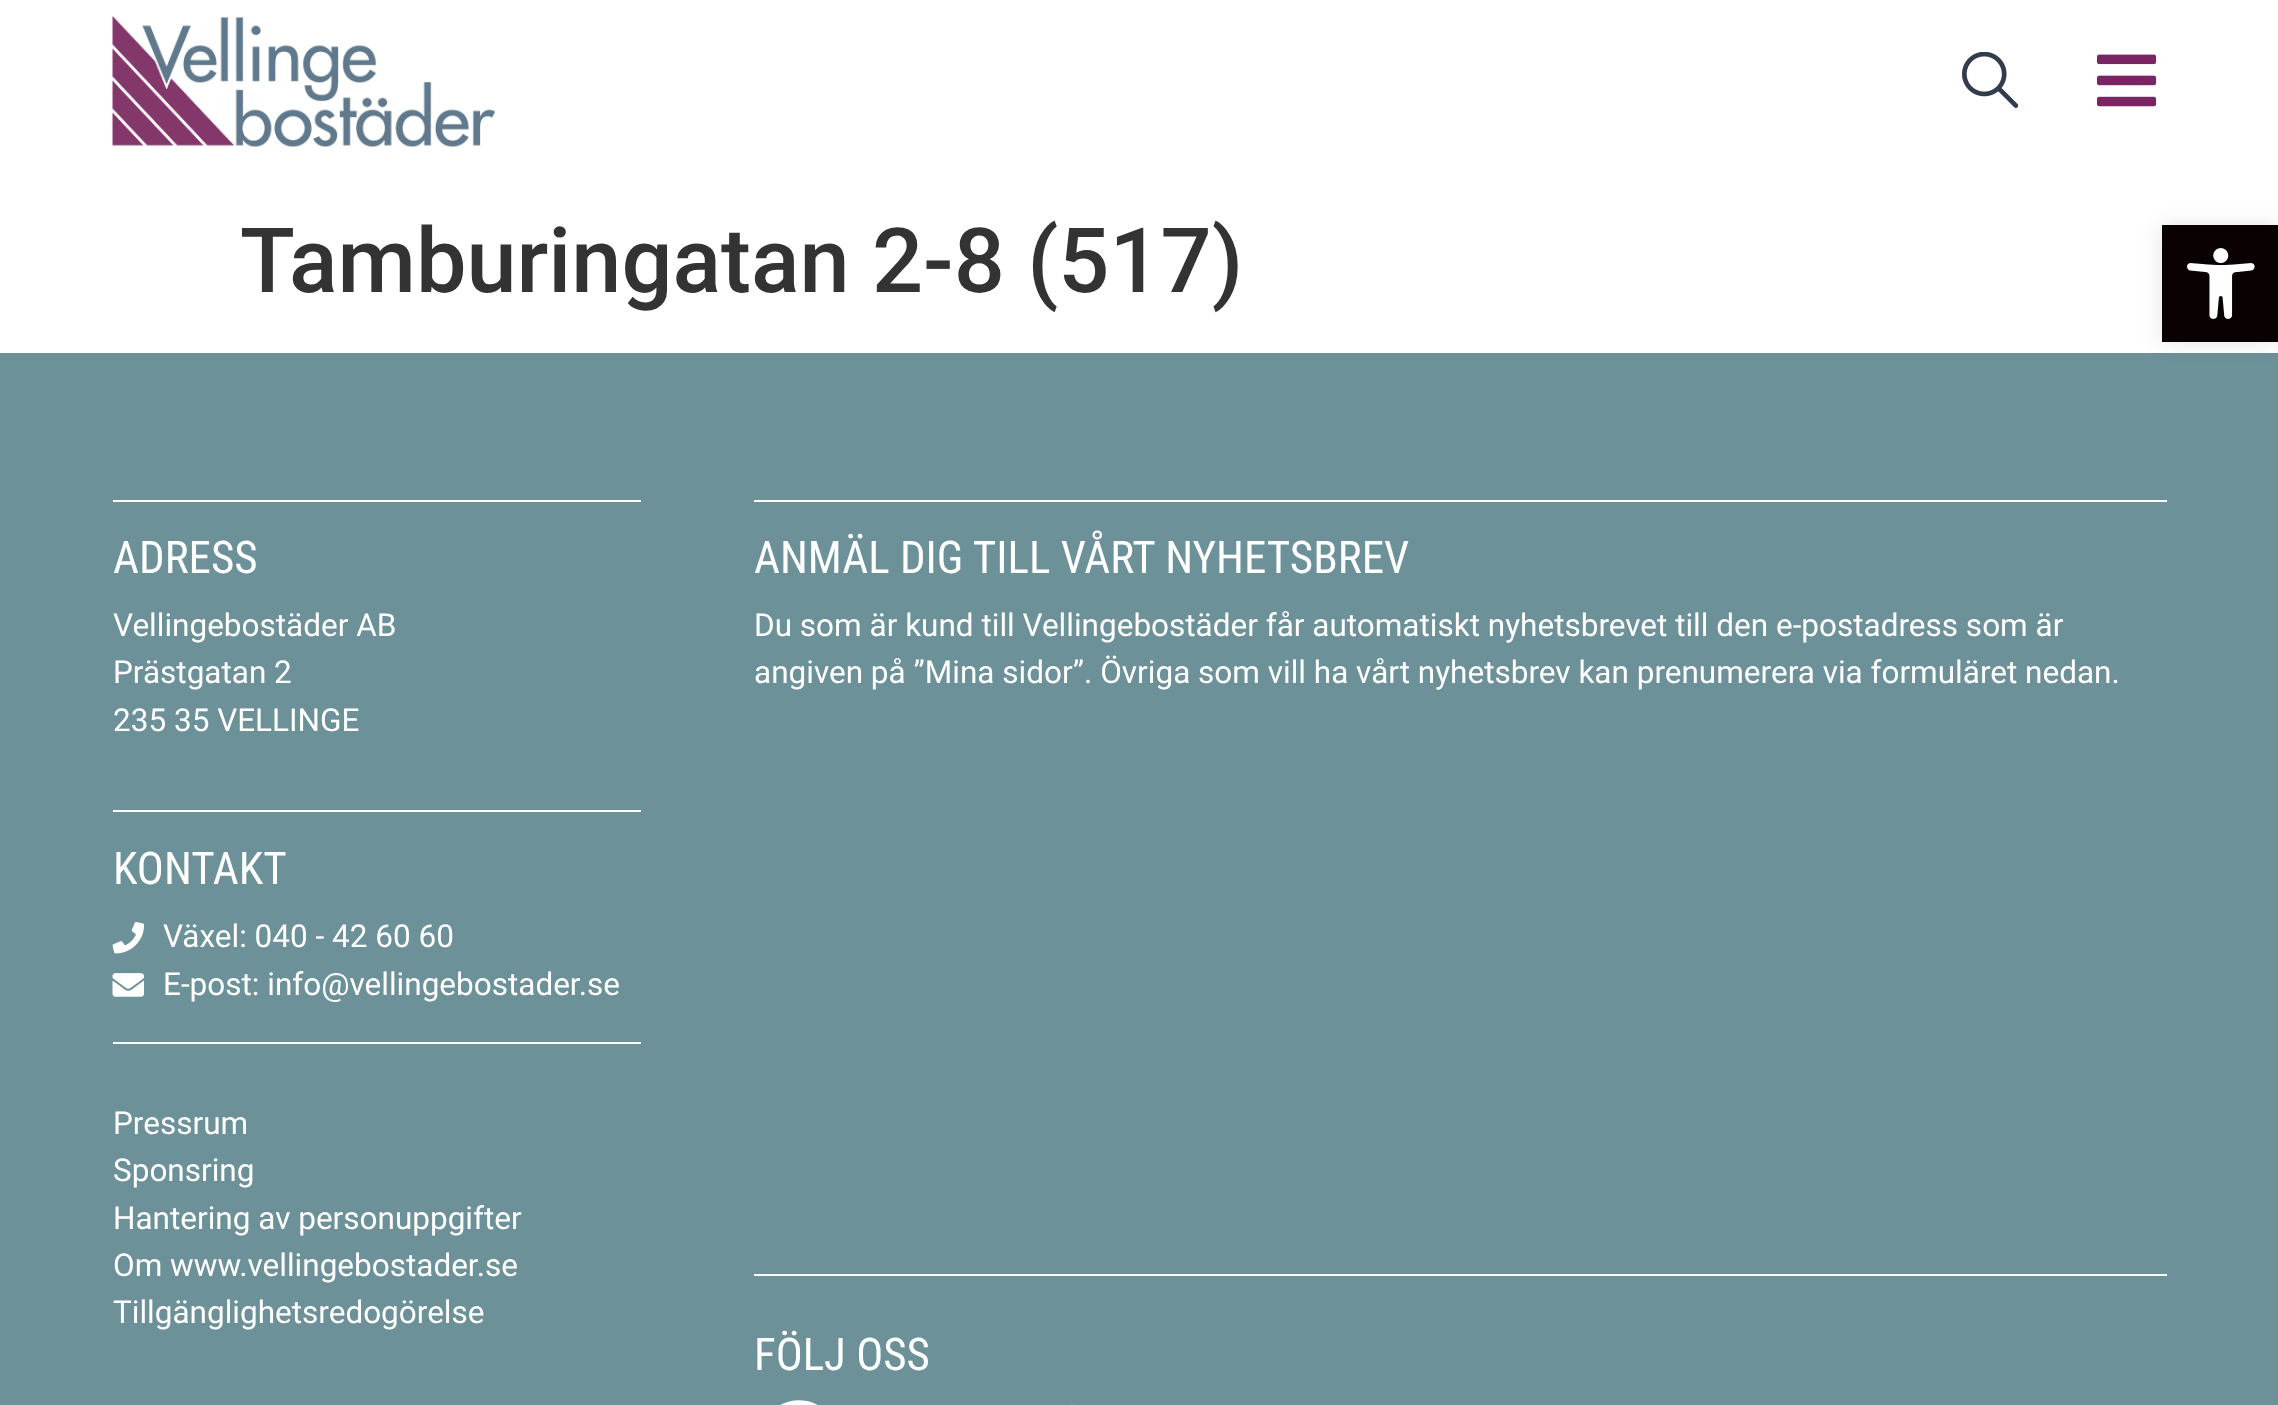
<svg xmlns="http://www.w3.org/2000/svg" width="2278" height="1405" viewBox="0 0 2278 1405">
  <rect width="100%" height="100%" fill="#fff"/>
  <image x="112" y="16" width="383" height="131" href="img/1.png"/>
  <image x="1962" y="52" width="56" height="56" href="img/2.png"/>
  <image x="2097" y="54" width="60" height="53" href="img/3.png"/>
  <path d="M0 353h2278v1052H0z" fill="#6c9199"/>
  <path d="M2162 225h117v117H2162z" fill="#0000001a" filter="blur(11px)"/>
  <path d="M2162 225h116v117H2162z" fill="#0a0202"/>
  <image x="2187" y="248" width="68" height="71" href="img/4.png"/>
  <path d="M113 500h528v2H113z" fill="#fff"/>
  <path d="M113 810h528v2H113z" fill="#fff"/>
  <image x="112" y="922" width="33" height="32" href="img/5.png"/>
  <image x="112" y="973" width="32" height="24" href="img/6.png"/>
  <path d="M113 1042h528v2H113z" fill="#fff"/>
  <path d="M754 500h1413v2H754z" fill="#fff"/>
  <path d="M754 1274h1413v2H754z" fill="#fff"/>
  <path d="M842 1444C842 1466 827 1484 806 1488V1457H816L818 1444H806C806 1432 804 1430 818 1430V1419C808 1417 796 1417 793 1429C791 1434 792 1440 792 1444H781V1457H792V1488C782 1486 772 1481 766 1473C733 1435 781 1380 823 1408C835 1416 842 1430 842 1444Z" fill="#fff"/>
  <image x="1071" y="1404" width="4" height="1" href="img/7.png"/>
  <text x="240" y="292" font-family="Roboto" font-size="90" font-weight="500" fill="#333">Tamburingatan 2-8 (517)</text>
  <text x="113" y="573" font-family="Roboto Condensed" font-size="45" fill="#fff">ADRESS</text>
  <g font-family="Roboto" font-size="31.5" fill="#fff">
    <text x="113" y="636">Vellingebostäder AB</text>
    <text x="113" y="683">Prästgatan 2</text>
    <text x="113" y="731">235 35 VELLINGE</text>
  </g>
  <text x="113" y="884" font-family="Roboto Condensed" font-size="45" fill="#fff">KONTAKT</text>
  <g font-family="Roboto" font-size="31.5" fill="#fff">
    <text x="163" y="947">Växel: 040 - 42 60 60</text>
    <text x="163" y="995">E-post: info@vellingebostader.se</text>
    <text x="113" y="1134">Pressrum</text>
    <text x="113" y="1181">Sponsring</text>
    <text x="113" y="1229">Hantering av personuppgifter</text>
    <text x="113" y="1276">Om www.vellingebostader.se</text>
    <text x="113" y="1323">Tillgänglighetsredogörelse</text>
  </g>
  <text x="754" y="573" font-family="Roboto Condensed" font-size="45" fill="#fff">ANMÄL DIG TILL VÅRT NYHETSBREV</text>
  <g font-family="Roboto" font-size="31.5" fill="#fff">
    <text x="754" y="636">Du som är kund till Vellingebostäder får automatiskt nyhetsbrevet till den e-postadress som är</text>
    <text x="754" y="683">angiven på ”Mina sidor”. Övriga som vill ha vårt nyhetsbrev kan prenumerera via formuläret nedan.</text>
  </g>
  <text x="754" y="1370" font-family="Roboto Condensed" font-size="45" fill="#fff">FÖLJ OSS</text>
</svg>
